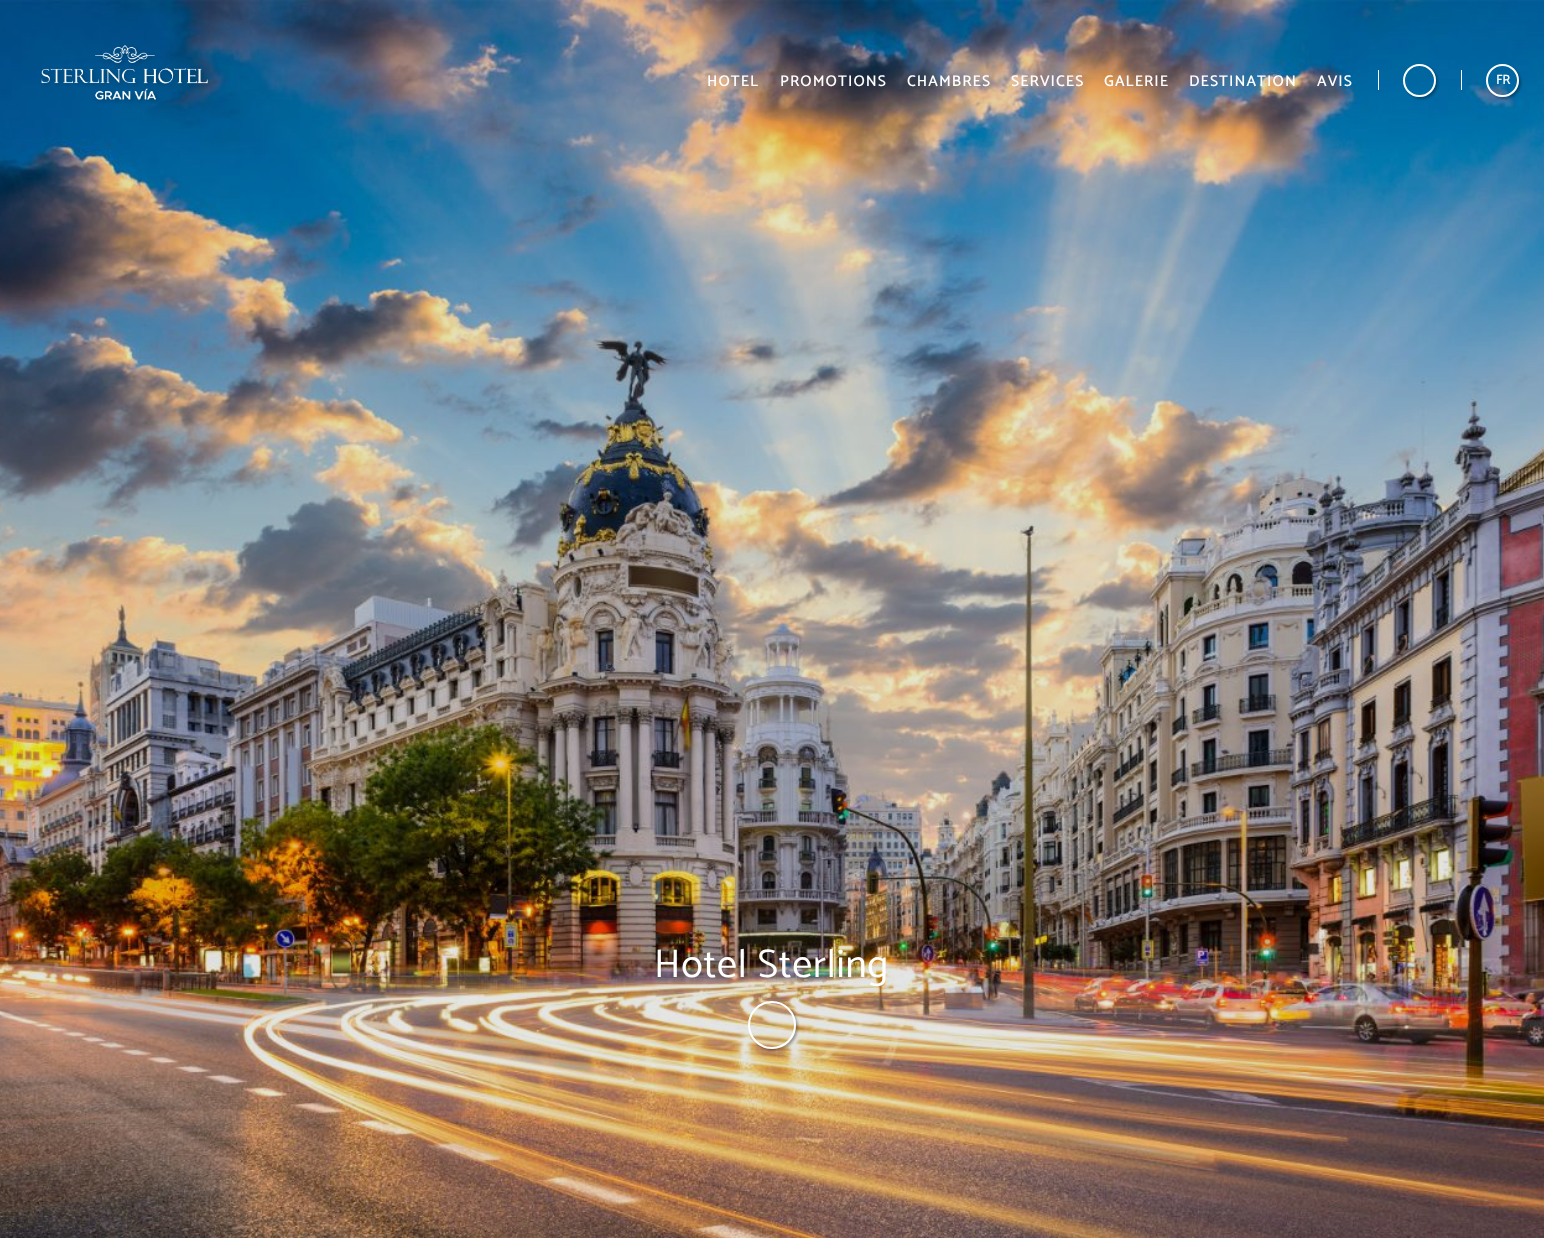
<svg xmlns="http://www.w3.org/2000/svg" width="1544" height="1238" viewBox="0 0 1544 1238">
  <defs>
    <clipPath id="clip1"><path d="M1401 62H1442V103H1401ZM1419.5 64C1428.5 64 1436 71.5 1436 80.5C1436 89.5 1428.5 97 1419.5 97C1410.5 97 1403 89.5 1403 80.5C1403 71.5 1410.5 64 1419.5 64Z" clip-rule="evenodd"/></clipPath>
    <clipPath id="clip2"><path d="M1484 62H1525V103H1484ZM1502.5 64C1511.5 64 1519 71.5 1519 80.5C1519 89.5 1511.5 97 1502.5 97C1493.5 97 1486 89.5 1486 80.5C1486 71.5 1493.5 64 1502.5 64Z" clip-rule="evenodd"/></clipPath>
    <clipPath id="clip3"><path d="M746 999H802V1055H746ZM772 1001C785.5 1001 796 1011.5 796 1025C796 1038.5 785.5 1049 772 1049C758.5 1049 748 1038.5 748 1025C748 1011.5 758.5 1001 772 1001Z" clip-rule="evenodd"/></clipPath>
  </defs>
  <rect width="100%" height="100%" fill="#fff"/>
  <image x="0" y="0" width="1544" height="1238" href="img/2.png"/>
  <image x="41" y="45" width="169" height="59" href="img/1.png"/>
  <path d="M1378 70h1v20H1378z" fill="#fff"/>
  <g clip-path="url(#clip1)">
    <rect x="1405" y="66" width="33" height="33" rx="16.5" fill="#0000004d" filter="blur(1px)"/>
  </g>
  <circle cx="1419.5" cy="80.5" r="15.5" fill="none" stroke="#fff" stroke-width="2"/>
  <path d="M1461 70h1v20H1461z" fill="#fff"/>
  <g clip-path="url(#clip2)">
    <rect x="1488" y="66" width="33" height="33" rx="16.5" fill="#0000004d" filter="blur(1px)"/>
  </g>
  <circle cx="1502.5" cy="80.5" r="15.5" fill="none" stroke="#fff" stroke-width="2"/>
  <g clip-path="url(#clip3)">
    <rect x="750" y="1003" width="48" height="48" rx="24" fill="#0000004d" filter="blur(1px)"/>
  </g>
  <circle cx="772" cy="1025" r="23" fill="none" stroke="#fff" stroke-width="2"/>
  <g font-family="Catamaran" font-size="15" font-weight="bold" letter-spacing="1.5" fill="#fff">
    <text x="707" y="86">HOTEL</text>
    <text x="780" y="86">PROMOTIONS</text>
    <text x="907" y="86">CHAMBRES</text>
    <text x="1011" y="86">SERVICES</text>
    <text x="1104" y="86">GALERIE</text>
    <text x="1189" y="86">DESTINATION</text>
    <text x="1317" y="86">AVIS</text>
  </g>
  <text x="1496" y="84" font-family="Catamaran" font-size="13" font-weight="bold" fill="#fff">FR</text>
  <text x="654" y="977" font-family="Catamaran" font-size="40" font-weight="100" letter-spacing="0.75" fill="#fff">Hotel Sterling</text>
</svg>
